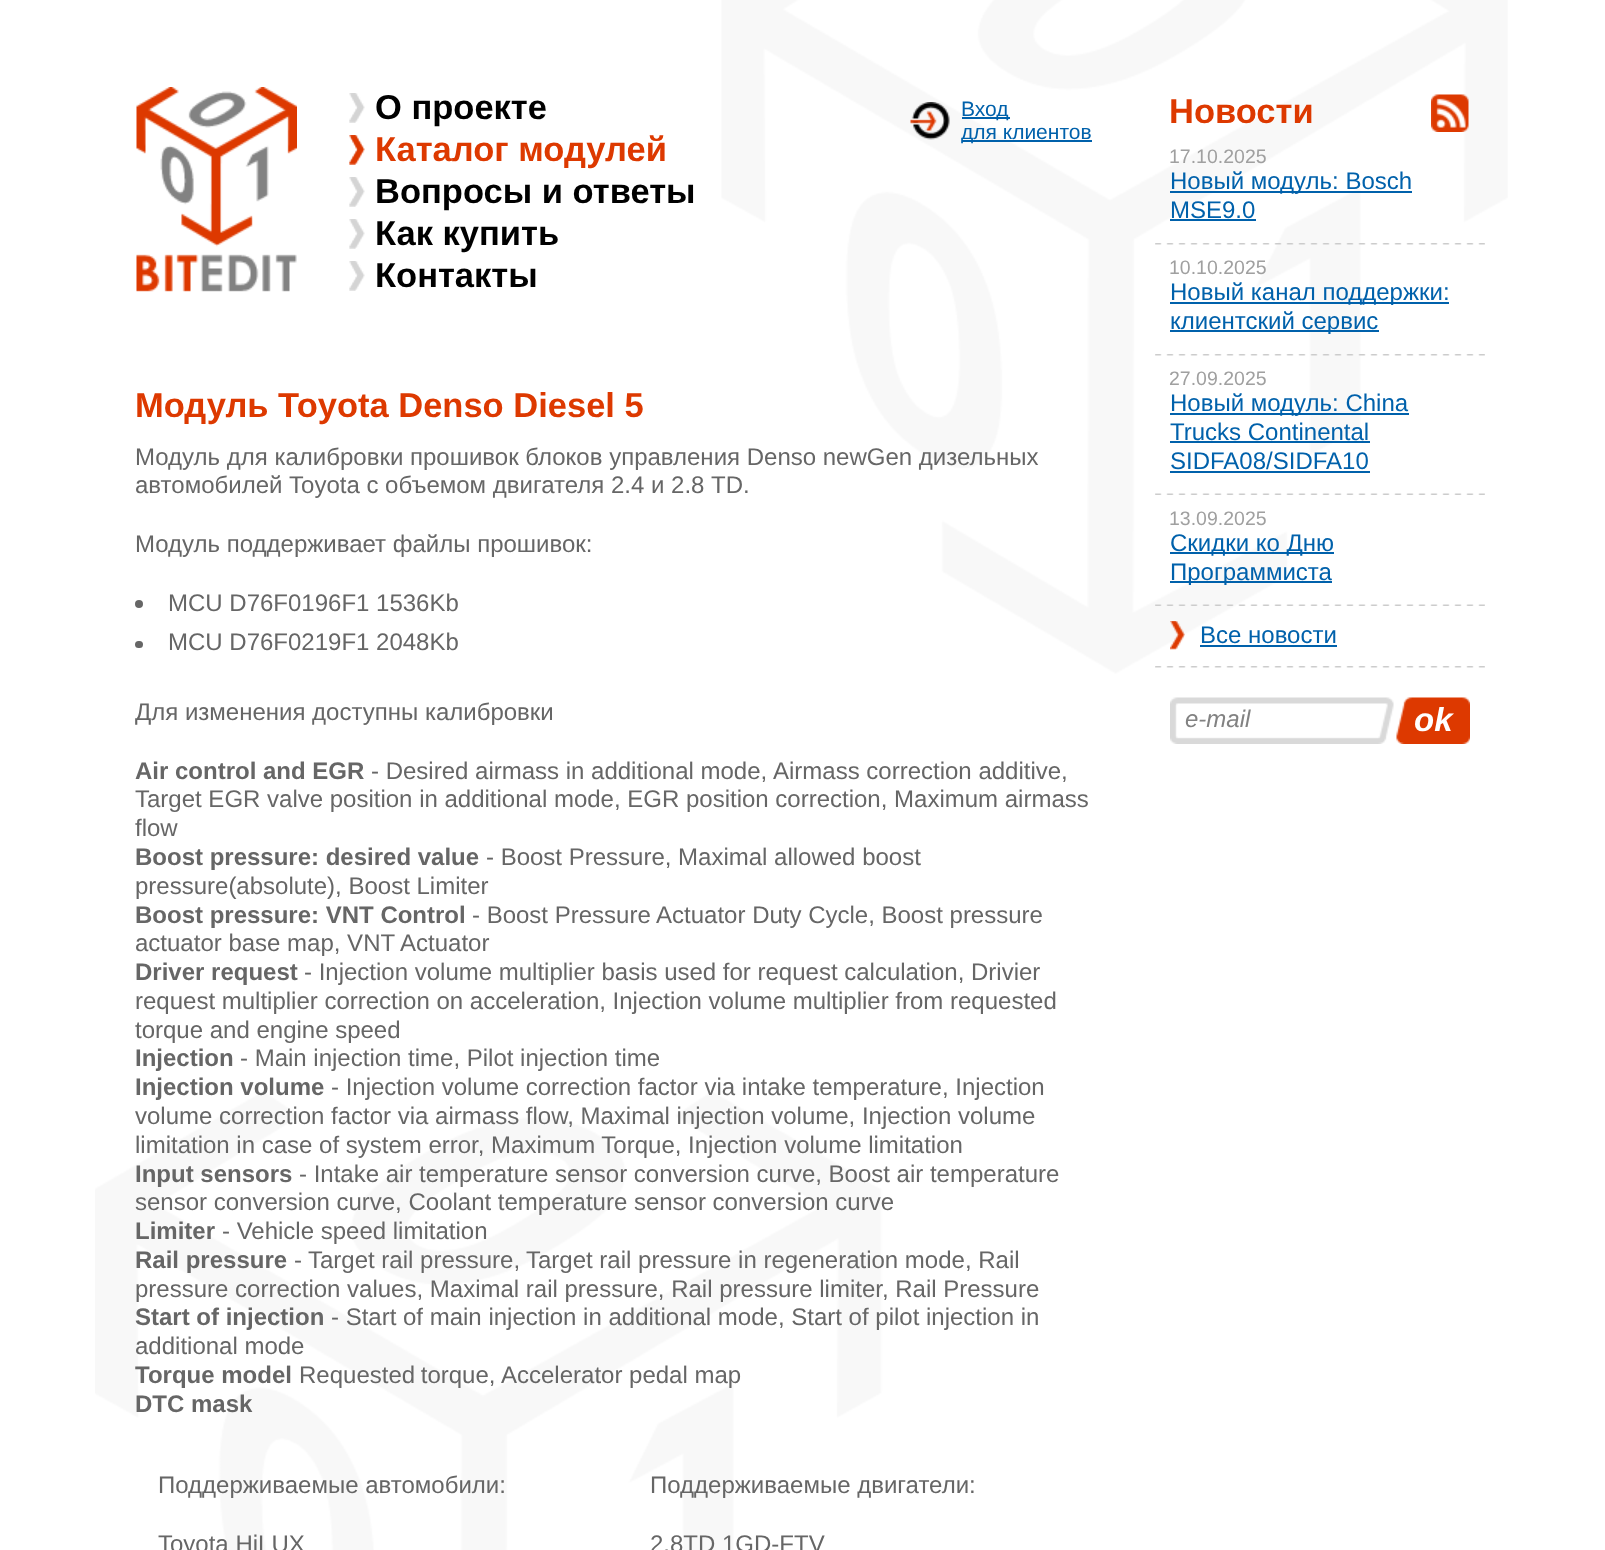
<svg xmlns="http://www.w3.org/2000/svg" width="1605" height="1550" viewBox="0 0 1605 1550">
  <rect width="100%" height="100%" fill="#fff"/>
  <image x="95" y="0" width="1413" height="1550" href="img/1.png"/>
  <image x="136" y="87" width="161" height="205" href="img/2.png"/>
  <image x="349" y="93" width="16" height="30" href="img/3.png"/>
  <image x="349" y="93" width="16" height="30" href="img/4.png"/>
  <image x="349" y="135" width="16" height="30" href="img/5.png"/>
  <image x="349" y="135" width="16" height="30" href="img/6.png"/>
  <image x="349" y="177" width="16" height="30" href="img/3.png"/>
  <image x="349" y="177" width="16" height="30" href="img/4.png"/>
  <image x="349" y="219" width="16" height="30" href="img/3.png"/>
  <image x="349" y="219" width="16" height="30" href="img/4.png"/>
  <image x="349" y="261" width="16" height="30" href="img/3.png"/>
  <image x="349" y="261" width="16" height="30" href="img/4.png"/>
  <image x="910" y="102" width="40" height="38" href="img/7.png"/>
  <path d="M962 117h48v2H962z" fill="#0061ab"/>
  <path d="M962 140h130v2H962z" fill="#0061ab"/>
  <circle cx="139" cy="604" r="4" fill="#666"/>
  <rect x="135" y="641" width="8" height="7" rx="3.5" fill="#666"/>
  <image x="1431" y="94" width="38" height="38" href="img/8.png"/>
  <image x="1155" y="243" width="330" height="2" href="img/9.png"/>
  <path d="M1170 191h242v2H1170z" fill="#0061ab"/>
  <path d="M1170 219h86v2H1170z" fill="#0061ab"/>
  <image x="1155" y="354" width="330" height="2" href="img/10.png"/>
  <path d="M1170 302h279v2H1170z" fill="#0061ab"/>
  <path d="M1170 330h209v2H1170z" fill="#0061ab"/>
  <image x="1155" y="493" width="330" height="2" href="img/11.png"/>
  <path d="M1170 413h239v2H1170z" fill="#0061ab"/>
  <path d="M1170 441h200v2H1170z" fill="#0061ab"/>
  <path d="M1170 471h200v2H1170z" fill="#0061ab"/>
  <image x="1155" y="604" width="330" height="2" href="img/12.png"/>
  <path d="M1170 552h164v2H1170z" fill="#0061ab"/>
  <path d="M1170 581h162v2H1170z" fill="#0061ab"/>
  <image x="1155" y="666" width="330" height="2" href="img/13.png"/>
  <image x="1170" y="621" width="15" height="29" href="img/14.png"/>
  <path d="M1200 645h137v2H1200z" fill="#0061ab"/>
  <image x="1170" y="697" width="224" height="47" href="img/15.png"/>
  <image x="1396" y="697" width="74" height="47" href="img/16.png"/>
  <text x="375" y="119" font-family="Liberation Sans" font-size="34.5" font-weight="bold" fill="#000">О проекте</text>
  <text x="375" y="161" font-family="Liberation Sans" font-size="34.5" font-weight="bold" fill="#dd3900">Каталог модулей</text>
  <g font-family="Liberation Sans" font-size="34.5" font-weight="bold" fill="#000">
    <text x="375" y="203">Вопросы и ответы</text>
    <text x="375" y="245">Как купить</text>
    <text x="375" y="287">Контакты</text>
  </g>
  <g font-family="Liberation Sans" font-size="21" fill="#0061ab">
    <text x="961" y="116">Вход</text>
    <text x="961" y="139">для клиентов</text>
  </g>
  <text x="135" y="417" font-family="Liberation Sans" font-size="34.5" font-weight="bold" fill="#dd3900">Модуль Toyota Denso Diesel 5</text>
  <g font-family="Liberation Sans" font-size="24" fill="#666">
    <text x="135" y="465">Модуль для калибровки прошивок блоков управления Denso newGen дизельных</text>
    <text x="135" y="493">автомобилей Toyota с объемом двигателя 2.4 и 2.8 TD.</text>
    <text x="135" y="552">Модуль поддерживает файлы прошивок:</text>
    <text x="168" y="611">MCU D76F0196F1 1536Kb</text>
    <text x="168" y="650">MCU D76F0219F1 2048Kb</text>
    <text x="135" y="720">Для изменения доступны калибровки</text>
  </g>
  <text x="135" y="779" font-family="Liberation Sans" font-size="24" font-weight="bold" fill="#666">Air control and EGR</text>
  <g font-family="Liberation Sans" font-size="24" fill="#666">
    <text x="371" y="779">- Desired airmass in additional mode,</text>
    <text x="773" y="779">Airmass correction additive,</text>
    <text x="135" y="807">Target EGR valve position in additional mode, EGR position correction, Maximum airmass</text>
    <text x="135" y="836">flow</text>
  </g>
  <text x="135" y="865" font-family="Liberation Sans" font-size="24" font-weight="bold" fill="#666">Boost pressure: desired value</text>
  <g font-family="Liberation Sans" font-size="24" fill="#666">
    <text x="486" y="865">- Boost Pressure, Maximal allowed boost</text>
    <text x="135" y="894">pressure(absolute), Boost Limiter</text>
  </g>
  <text x="135" y="923" font-family="Liberation Sans" font-size="24" font-weight="bold" fill="#666">Boost pressure: VNT Control</text>
  <g font-family="Liberation Sans" font-size="24" fill="#666">
    <text x="472" y="923">- Boost Pressure Actuator Duty Cycle, Boost pressure</text>
    <text x="135" y="951">actuator base map, VNT Actuator</text>
  </g>
  <text x="135" y="980" font-family="Liberation Sans" font-size="24" font-weight="bold" fill="#666">Driver request</text>
  <g font-family="Liberation Sans" font-size="24" fill="#666">
    <text x="304" y="980">- Injection volume multiplier basis used for request calculation, Drivier</text>
    <text x="135" y="1009">request multiplier correction on acceleration, Injection volume multiplier from requested</text>
    <text x="135" y="1038">torque and engine speed</text>
  </g>
  <text x="135" y="1066" font-family="Liberation Sans" font-size="24" font-weight="bold" fill="#666">Injection</text>
  <text x="240" y="1066" font-family="Liberation Sans" font-size="24" fill="#666">- Main injection time, Pilot injection time</text>
  <text x="135" y="1095" font-family="Liberation Sans" font-size="24" font-weight="bold" fill="#666">Injection volume</text>
  <g font-family="Liberation Sans" font-size="24" fill="#666">
    <text x="331" y="1095">- Injection volume correction factor via intake temperature, Injection</text>
    <text x="135" y="1124">volume correction factor via airmass flow, Maximal injection volume, Injection volume</text>
    <text x="135" y="1153">limitation in case of system error, Maximum Torque, Injection volume limitation</text>
  </g>
  <text x="135" y="1182" font-family="Liberation Sans" font-size="24" font-weight="bold" fill="#666">Input sensors</text>
  <g font-family="Liberation Sans" font-size="24" fill="#666">
    <text x="299" y="1182">- Intake air temperature sensor conversion curve, Boost air temperature</text>
    <text x="135" y="1210">sensor conversion curve, Coolant temperature sensor conversion curve</text>
  </g>
  <text x="135" y="1239" font-family="Liberation Sans" font-size="24" font-weight="bold" fill="#666">Limiter</text>
  <text x="222" y="1239" font-family="Liberation Sans" font-size="24" fill="#666">- Vehicle speed limitation</text>
  <text x="135" y="1268" font-family="Liberation Sans" font-size="24" font-weight="bold" fill="#666">Rail pressure</text>
  <g font-family="Liberation Sans" font-size="24" fill="#666">
    <text x="294" y="1268">-</text>
    <text x="308" y="1268">Target rail pressure,</text>
    <text x="526" y="1268">Target rail pressure in regeneration mode, Rail</text>
    <text x="135" y="1297">pressure correction values, Maximal rail pressure, Rail pressure limiter, Rail Pressure</text>
  </g>
  <text x="135" y="1325" font-family="Liberation Sans" font-size="24" font-weight="bold" fill="#666">Start of injection</text>
  <g font-family="Liberation Sans" font-size="24" fill="#666">
    <text x="331" y="1325">- Start of main injection in additional mode, Start of pilot injection in</text>
    <text x="135" y="1354">additional mode</text>
  </g>
  <text x="135" y="1383" font-family="Liberation Sans" font-size="24" font-weight="bold" fill="#666">Torque model</text>
  <g font-family="Liberation Sans" font-size="24" fill="#666">
    <text x="299" y="1383" word-spacing="-1">Requested torque,</text>
    <text x="501" y="1383">Accelerator pedal map</text>
  </g>
  <text x="135" y="1412" font-family="Liberation Sans" font-size="24" font-weight="bold" fill="#666">DTC mask</text>
  <g font-family="Liberation Sans" font-size="24" fill="#666">
    <text x="158" y="1493">Поддерживаемые автомобили:</text>
    <text x="158" y="1552">Toyota HiLUX</text>
    <text x="650" y="1493">Поддерживаемые двигатели:</text>
    <text x="650" y="1552">2.8TD 1GD-FTV</text>
  </g>
  <text x="1169" y="123" font-family="Liberation Sans" font-size="34.5" font-weight="bold" fill="#dd3900">Новости</text>
  <text x="1169" y="163" font-family="Liberation Sans" font-size="19.5" fill="#a0a0a0">17.10.2025</text>
  <g font-family="Liberation Sans" font-size="24" fill="#0061ab">
    <text x="1170" y="189">Новый модуль: Bosch</text>
    <text x="1170" y="218">MSE9.0</text>
  </g>
  <text x="1169" y="274" font-family="Liberation Sans" font-size="19.5" fill="#a0a0a0">10.10.2025</text>
  <g font-family="Liberation Sans" font-size="24" fill="#0061ab">
    <text x="1170" y="300">Новый канал поддержки:</text>
    <text x="1170" y="329">клиентский сервис</text>
  </g>
  <text x="1169" y="385" font-family="Liberation Sans" font-size="19.5" fill="#a0a0a0">27.09.2025</text>
  <g font-family="Liberation Sans" font-size="24" fill="#0061ab">
    <text x="1170" y="411">Новый модуль: China</text>
    <text x="1170" y="440">Trucks Continental</text>
    <text x="1170" y="469">SIDFA08/SIDFA10</text>
  </g>
  <text x="1169" y="525" font-family="Liberation Sans" font-size="19.5" fill="#a0a0a0">13.09.2025</text>
  <g font-family="Liberation Sans" font-size="24" fill="#0061ab">
    <text x="1170" y="551">Скидки ко Дню</text>
    <text x="1170" y="580">Программиста</text>
    <text x="1200" y="643">Все новости</text>
  </g>
  <text x="1185" y="727" font-family="Liberation Sans" font-size="24" font-style="italic" fill="#828282">e-mail</text>
  <text x="1414" y="731" font-family="Liberation Sans" font-size="33" font-weight="bold" font-style="italic" fill="#fff">ok</text>
</svg>
